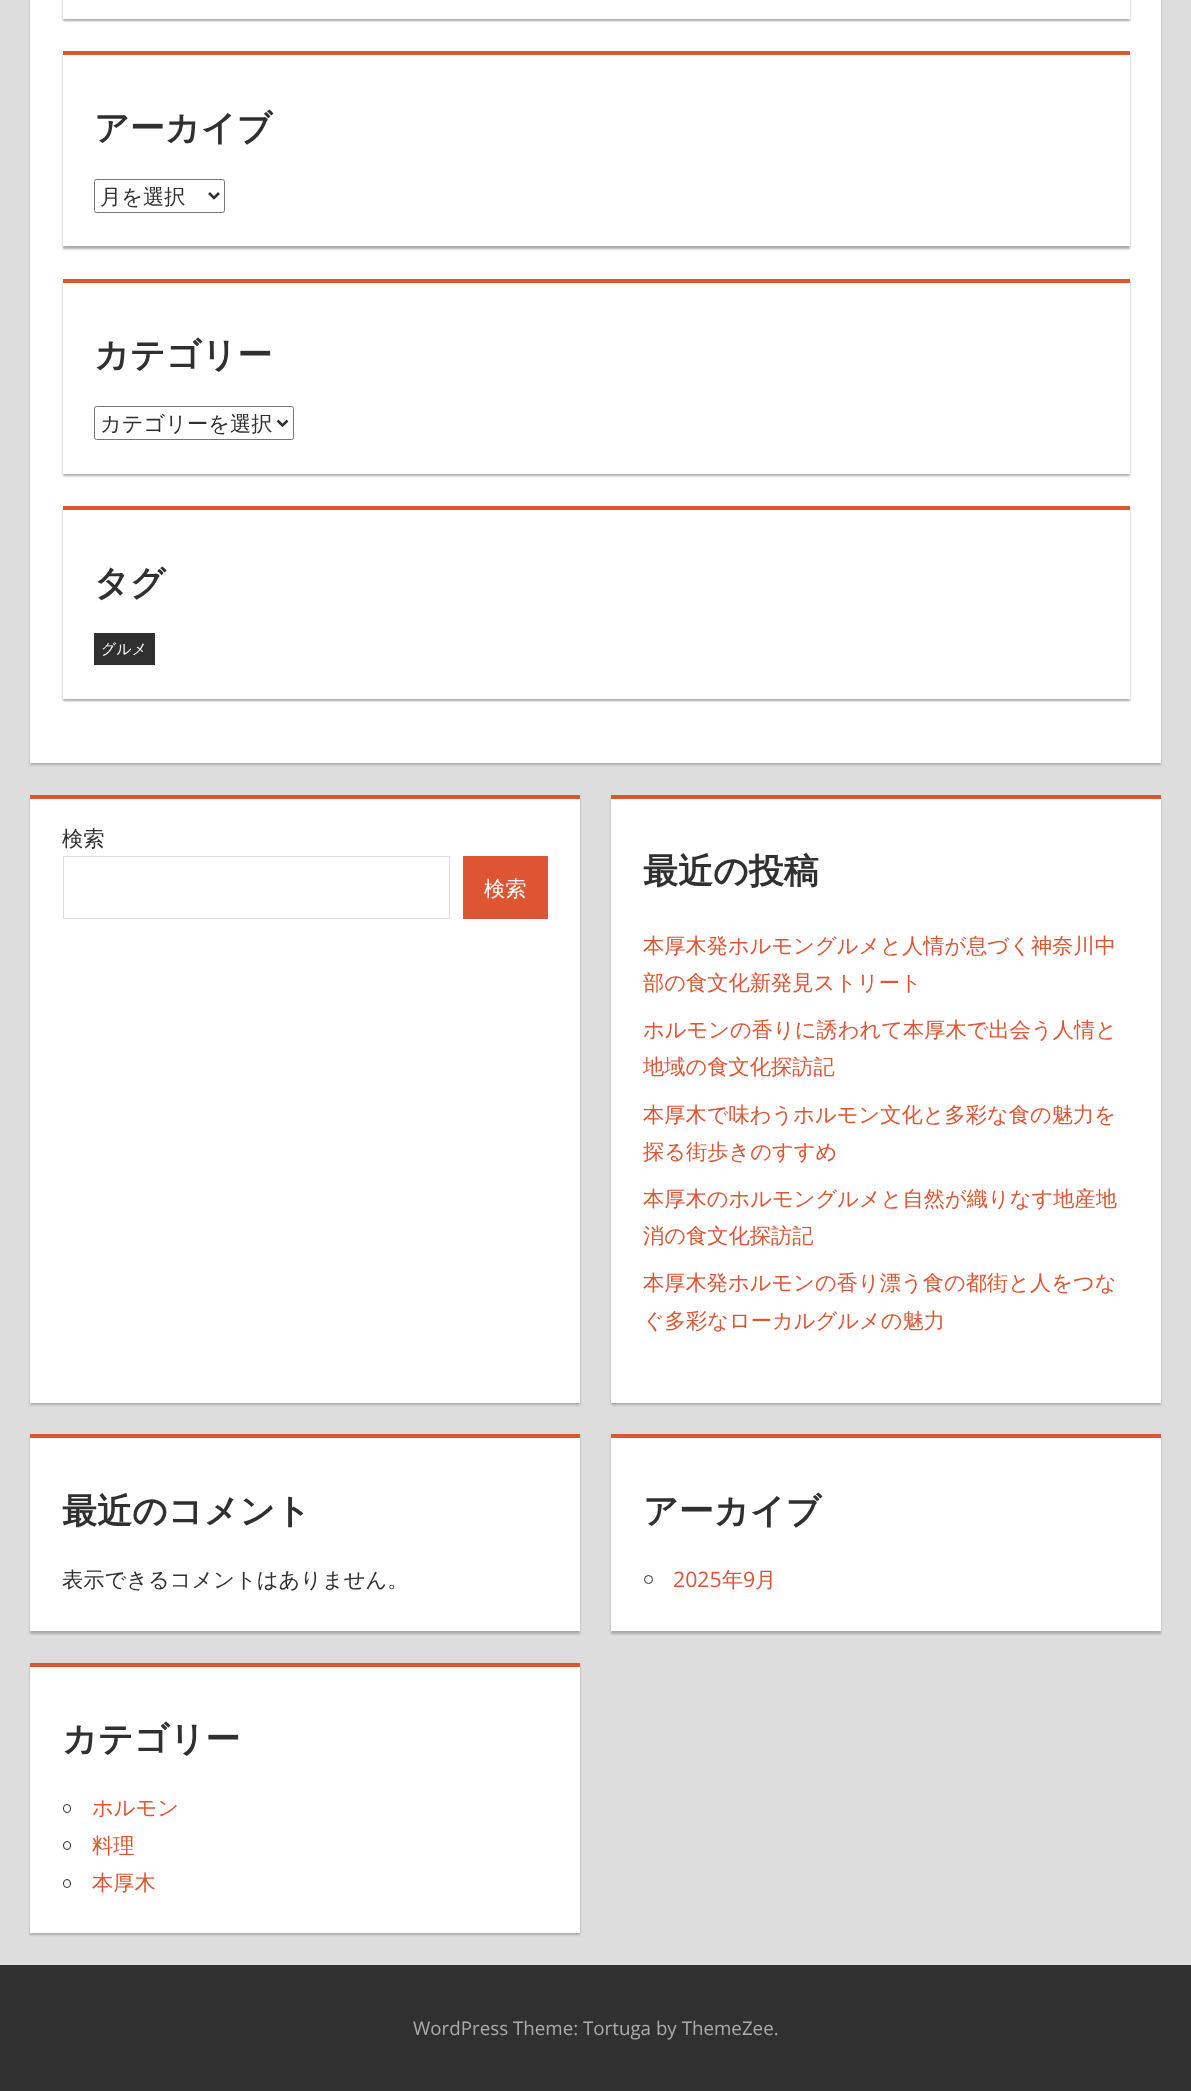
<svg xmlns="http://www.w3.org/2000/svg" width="1191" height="2091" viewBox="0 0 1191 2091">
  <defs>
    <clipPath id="clip1"><path d="M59 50H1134V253H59ZM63 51H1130V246H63Z" clip-rule="evenodd"/></clipPath>
  </defs>
  <rect width="100%" height="100%" fill="#ddd"/>
  <path d="M30 -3h1131v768H30z" fill="#aaa" filter="blur(1px)"/>
  <path d="M30 0h1131v763H30z" fill="#fff"/>
  <path d="M63 -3h1067v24H63z" fill="#aaa" filter="blur(1px)"/>
  <path d="M63 0h1067v19H63z" fill="#fff"/>
  <g clip-path="url(#clip1)">
    <path d="M63 54h1067v195H63z" fill="#aaa" filter="blur(1px)"/>
  </g>
  <path d="M63 51h1067v4H63z" fill="#d53"/>
  <rect x="94.5" y="179.5" width="130" height="33" rx="2" fill="none" stroke="#767676"/>
  <path d="M209 193L214 198L219 193" fill="none" stroke="#303030" stroke-width="2.5"/>
  <path d="M63 281h1067v195H63z" fill="#aaa" filter="blur(1px)"/>
  <path d="M63 283h1067v191H63z" fill="#fff"/>
  <path d="M63 279h1067v4H63z" fill="#d53"/>
  <rect x="94.5" y="406.5" width="199" height="33" rx="2" fill="none" stroke="#767676"/>
  <path d="M277.5 420.5L282.5 425.5L287.5 420.5" fill="none" stroke="#303030" stroke-width="2.5"/>
  <path d="M63 509h1067v192H63z" fill="#aaa" filter="blur(1px)"/>
  <path d="M63 510h1067v189H63z" fill="#fff"/>
  <path d="M63 506h1067v4H63z" fill="#d53"/>
  <path d="M94 633h61v32H94z" fill="#303030"/>
  <path d="M30 798h550v607H30z" fill="#aaa" filter="blur(1px)"/>
  <path d="M30 799h550v604H30z" fill="#fff"/>
  <path d="M30 795h550v4H30z" fill="#d53"/>
  <path d="M63.5 856.5h386v62H63.5z" fill="none" stroke="#ddd"/>
  <path d="M463 856h85v63H463z" fill="#d53"/>
  <path d="M611 798h550v607H611z" fill="#aaa" filter="blur(1px)"/>
  <path d="M611 799h550v604H611z" fill="#fff"/>
  <path d="M611 795h550v4H611z" fill="#d53"/>
  <path d="M30 1436h550v198H30z" fill="#aaa" filter="blur(1px)"/>
  <path d="M30 1438h550v193H30z" fill="#fff"/>
  <path d="M30 1434h550v4H30z" fill="#d53"/>
  <path d="M611 1436h550v198H611z" fill="#aaa" filter="blur(1px)"/>
  <path d="M611 1438h550v193H611z" fill="#fff"/>
  <path d="M611 1434h550v4H611z" fill="#d53"/>
  <circle cx="648.5" cy="1579.5" r="4" fill="none" stroke="#303030"/>
  <path d="M30 1665h550v270H30z" fill="#aaa" filter="blur(1px)"/>
  <path d="M30 1667h550v266H30z" fill="#fff"/>
  <path d="M30 1663h550v4H30z" fill="#d53"/>
  <rect x="63.5" y="1804.5" width="7" height="8" rx="3.5" fill="none" stroke="#303030"/>
  <rect x="63.5" y="1841.5" width="7" height="8" rx="3.5" fill="none" stroke="#303030"/>
  <rect x="63.5" y="1879.5" width="7" height="8" rx="3.5" fill="none" stroke="#303030"/>
  <path d="M0 1965h1191v126H0z" fill="#303030"/>
  <text x="94" y="140" font-family="WenQuanYi Zen Hei" font-size="35" font-weight="bold" fill="#303030">アーカイブ</text>
  <text x="100" y="204" font-family="WenQuanYi Zen Hei" font-size="21.25" font-weight="500" fill="#303030">月を選択</text>
  <text x="94" y="367" font-family="WenQuanYi Zen Hei" font-size="35" font-weight="bold" fill="#303030">カテゴリー</text>
  <text x="100" y="431" font-family="WenQuanYi Zen Hei" font-size="21.25" font-weight="500" fill="#303030">カテゴリーを選択</text>
  <text x="94" y="595" font-family="WenQuanYi Zen Hei" font-size="35" font-weight="bold" fill="#303030">タグ</text>
  <text x="101" y="654" font-family="WenQuanYi Zen Hei" font-size="15" font-weight="500" fill="#fff">グルメ</text>
  <text x="62" y="846" font-family="WenQuanYi Zen Hei" font-size="21.25" font-weight="500" fill="#303030">検索</text>
  <text x="484" y="896" font-family="WenQuanYi Zen Hei" font-size="21.25" font-weight="500" fill="#fff">検索</text>
  <text x="643" y="883" font-family="WenQuanYi Zen Hei" font-size="35" font-weight="bold" fill="#303030">最近の投稿</text>
  <g font-family="WenQuanYi Zen Hei" font-size="21.25" font-weight="500" fill="#d53">
    <text x="643" y="953">本厚木発ホルモングルメと人情が息づく神奈川中</text>
    <text x="643" y="990">部の食文化新発見ストリート</text>
    <text x="643" y="1037">ホルモンの香りに誘われて本厚木で出会う人情と</text>
    <text x="643" y="1074">地域の食文化探訪記</text>
    <text x="643" y="1122">本厚木で味わうホルモン文化と多彩な食の魅力を</text>
    <text x="643" y="1159">探る街歩きのすすめ</text>
    <text x="643" y="1206">本厚木のホルモングルメと自然が織りなす地産地</text>
    <text x="643" y="1243">消の食文化探訪記</text>
    <text x="643" y="1290">本厚木発ホルモンの香り漂う食の都街と人をつな</text>
    <text x="643" y="1328">ぐ多彩なローカルグルメの魅力</text>
  </g>
  <text x="62" y="1523" font-family="WenQuanYi Zen Hei" font-size="35" font-weight="bold" fill="#303030">最近のコメント</text>
  <text x="62" y="1587" font-family="WenQuanYi Zen Hei" font-size="21.25" font-weight="500" fill="#303030">表示できるコメントはありません。</text>
  <text x="643" y="1523" font-family="WenQuanYi Zen Hei" font-size="35" font-weight="bold" fill="#303030">アーカイブ</text>
  <text x="673" y="1587" font-family="Open Sans" font-size="21.25" fill="#d53">2025</text>
  <text x="722" y="1587" font-family="WenQuanYi Zen Hei" font-size="21.25" font-weight="500" fill="#d53">年</text>
  <text x="743" y="1587" font-family="Open Sans" font-size="21.25" fill="#d53">9</text>
  <text x="755" y="1587" font-family="WenQuanYi Zen Hei" font-size="21.25" font-weight="500" fill="#d53">月</text>
  <text x="62" y="1751" font-family="WenQuanYi Zen Hei" font-size="35" font-weight="bold" fill="#303030">カテゴリー</text>
  <g font-family="WenQuanYi Zen Hei" font-size="21.25" font-weight="500" fill="#d53">
    <text x="92" y="1815">ホルモン</text>
    <text x="92" y="1853">料理</text>
    <text x="92" y="1890">本厚木</text>
  </g>
  <text x="413" y="2035" font-family="Open Sans" font-size="18.75" fill="#acacac">WordPress Theme: Tortuga by ThemeZee.</text>
</svg>
